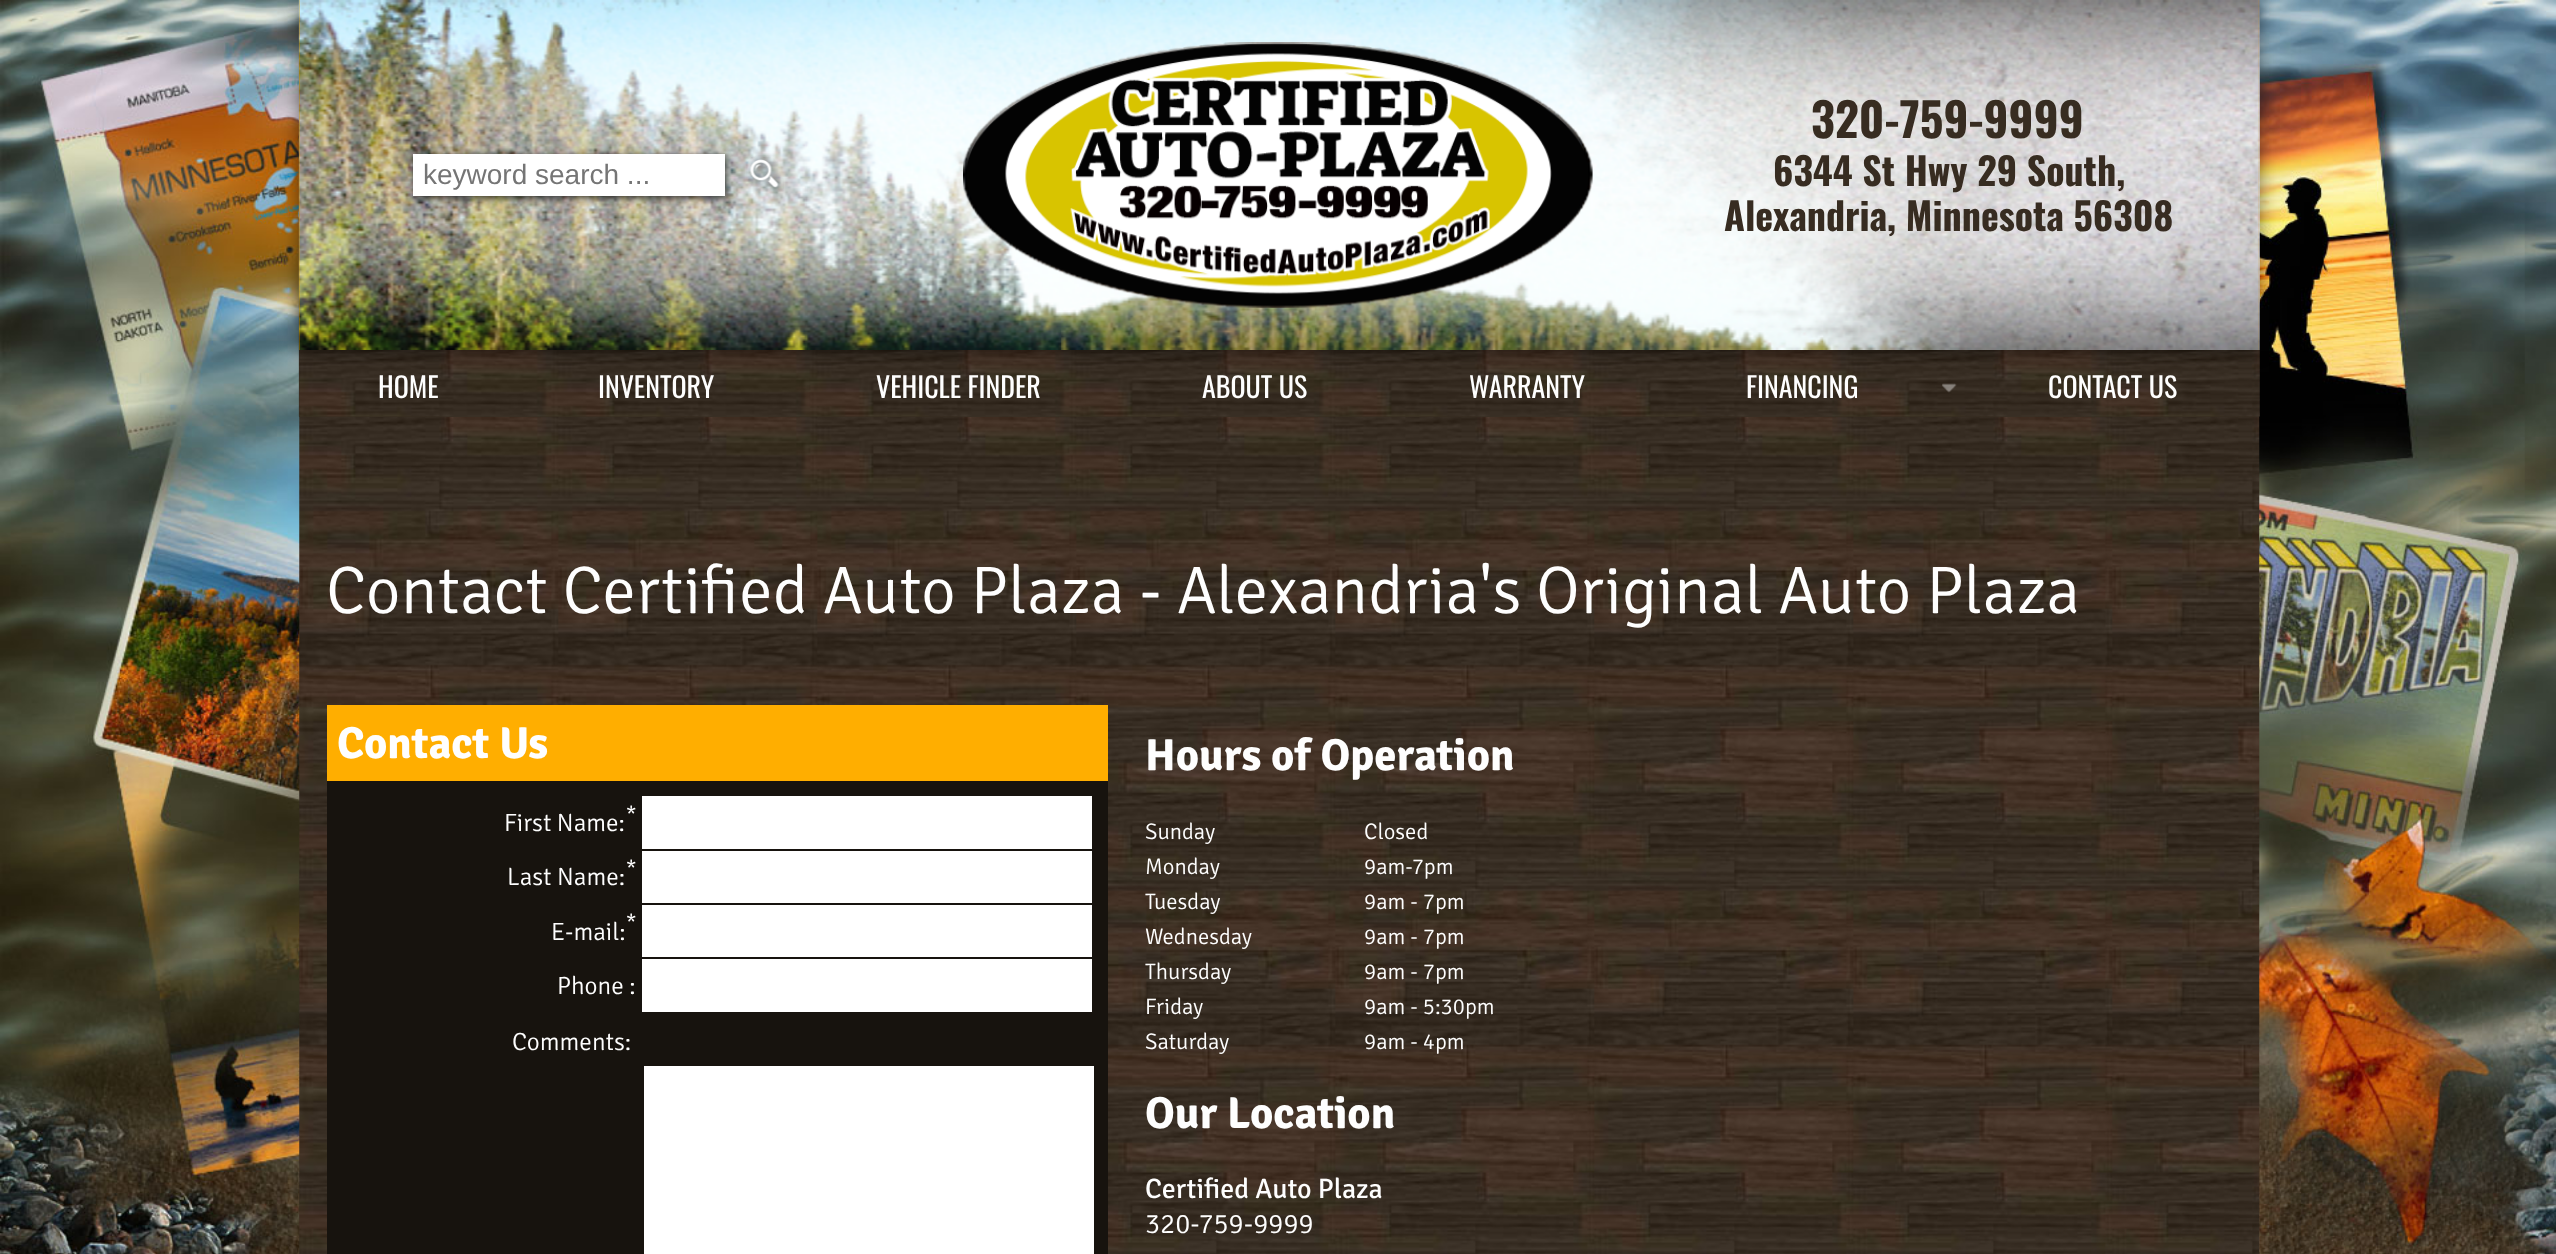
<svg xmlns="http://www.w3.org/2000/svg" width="2556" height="1254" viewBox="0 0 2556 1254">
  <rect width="100%" height="100%" fill="#fff"/>
  <image x="0" y="0" width="2556" height="1254" href="img/1.png"/>
  <image x="299" y="413" width="1961" height="841" href="img/7.png"/>
  <path d="M299 350h1960v67H299z" fill="#372c21"/>
  <image x="298" y="350" width="1962" height="67" href="img/5.png"/>
  <path d="M299 0h1960v350H299z" fill="#00000080" filter="blur(9px)"/>
  <path d="M299 0h1960v350H299z" fill="#cc8b00"/>
  <image x="298" y="0" width="1962" height="350" href="img/2.png"/>
  <path d="M415 156h311v42H415z" fill="#010101bf" filter="blur(3.5px)"/>
  <path d="M413 154h312v42H413z" fill="#fff"/>
  <image x="746" y="155" width="38" height="39" href="img/3.png"/>
  <image x="963" y="42" width="630" height="266" href="img/4.png"/>
  <image x="1942" y="383" width="15" height="10" href="img/6.png"/>
  <path d="M327 705h781v76H327z" fill="#ffae00"/>
  <path d="M327 781h781v473H327z" fill="#17130e"/>
  <path d="M642 796h450v53H642z" fill="#fff"/>
  <path d="M642 851h450v52H642z" fill="#fff"/>
  <path d="M642 905h450v52H642z" fill="#fff"/>
  <path d="M642 959h450v53H642z" fill="#fff"/>
  <path d="M644 1066h450v188H644z" fill="#fff"/>
  <text x="423" y="184" font-family="Liberation Sans" font-size="28" fill="#757575">keyword search ...</text>
  <text x="1811" y="138" font-family="Oswald" font-size="46.5" font-weight="bold" fill="#372c21">320-759-9999</text>
  <g font-family="Oswald" font-size="37.9" font-weight="bold" fill="#372c21">
    <text x="1773" y="186">6344 St Hwy 29 South,</text>
    <text x="1724" y="231">Alexandria, Minnesota 56308</text>
  </g>
  <g font-family="Oswald" font-size="28" fill="#fefefe">
    <text x="378" y="398">HOME</text>
    <text x="598" y="398">INVENTORY</text>
    <text x="876" y="398">VEHICLE FINDER</text>
    <text x="1202" y="398">ABOUT US</text>
    <text x="1469" y="398">WARRANTY</text>
    <text x="1746" y="398">FINANCING</text>
    <text x="2048" y="398">CONTACT US</text>
  </g>
  <text x="326" y="613" font-family="Signika" font-size="67.2" font-weight="300" fill="#fefefe">Contact Certified Auto Plaza - Alexandria's Original Auto Plaza</text>
  <text x="337" y="758" font-family="Signika" font-size="44.75" font-weight="bold" fill="#fefefe">Contact Us</text>
  <text x="626" y="821" font-family="Signika" font-size="21" font-weight="300" fill="#fefefe">*</text>
  <text x="504" y="831" font-family="Signika" font-size="25" font-weight="300" fill="#fefefe">First Name:</text>
  <text x="626" y="875" font-family="Signika" font-size="21" font-weight="300" fill="#fefefe">*</text>
  <text x="507" y="885" font-family="Signika" font-size="25" font-weight="300" fill="#fefefe">Last Name:</text>
  <text x="626" y="929" font-family="Signika" font-size="21" font-weight="300" fill="#fefefe">*</text>
  <g font-family="Signika" font-size="25" font-weight="300" fill="#fefefe">
    <text x="551" y="940">E-mail:</text>
    <text x="557" y="994">Phone :</text>
    <text x="512" y="1050">Comments:</text>
  </g>
  <text x="1145" y="770" font-family="Signika" font-size="44.75" font-weight="bold" fill="#fefefe">Hours of Operation</text>
  <g font-family="Signika" font-size="22.5" font-weight="300" fill="#fefefe">
    <text x="1145" y="839">Sunday</text>
    <text x="1364" y="839">Closed</text>
    <text x="1145" y="874">Monday</text>
    <text x="1364" y="874">9am-7pm</text>
    <text x="1145" y="909">Tuesday</text>
    <text x="1364" y="909">9am - 7pm</text>
    <text x="1145" y="944">Wednesday</text>
    <text x="1364" y="944">9am - 7pm</text>
    <text x="1145" y="979">Thursday</text>
    <text x="1364" y="979">9am - 7pm</text>
    <text x="1145" y="1014">Friday</text>
    <text x="1364" y="1014">9am - 5:30pm</text>
    <text x="1145" y="1049">Saturday</text>
    <text x="1364" y="1049">9am - 4pm</text>
  </g>
  <text x="1145" y="1128" font-family="Signika" font-size="44.75" font-weight="bold" fill="#fefefe">Our Location</text>
  <text x="1145" y="1198" font-family="Signika" font-size="28" fill="#fefefe">Certified Auto Plaza</text>
  <text x="1145" y="1233" font-family="Signika" font-size="28" font-weight="300" fill="#fefefe">320-759-9999</text>
</svg>
